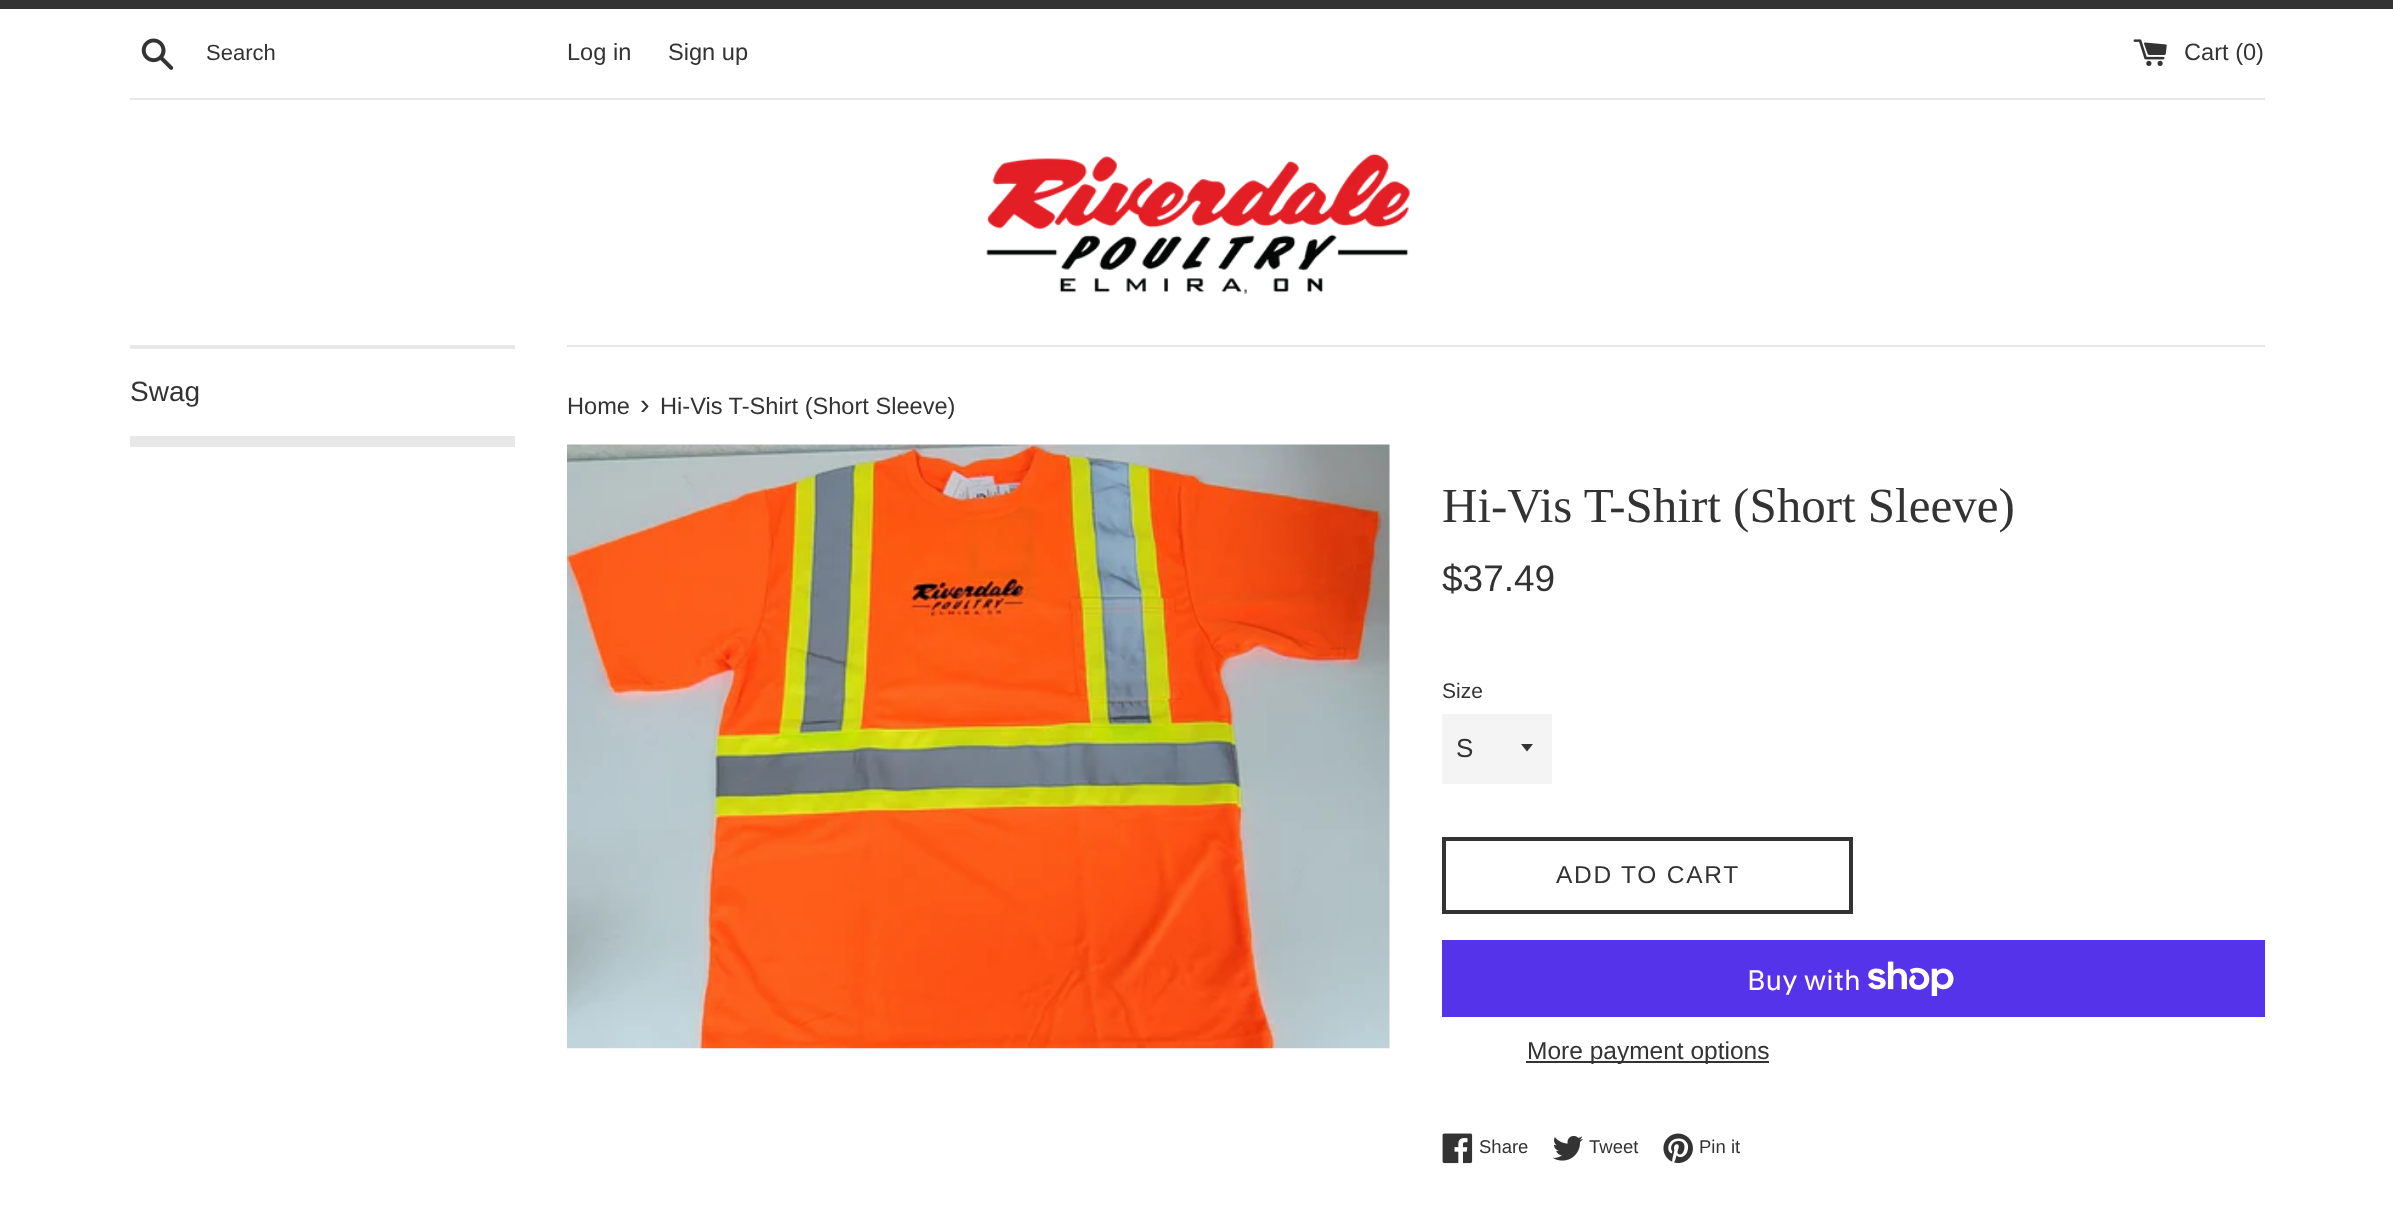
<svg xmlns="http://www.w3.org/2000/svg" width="2393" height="1225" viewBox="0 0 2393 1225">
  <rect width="100%" height="100%" fill="#fff"/>
  <path d="M0 0h2393v9H0z" fill="#333"/>
  <image x="141" y="38" width="33" height="32" href="img/1.png"/>
  <image x="2133" y="39" width="34" height="27" href="img/2.png"/>
  <path d="M130 98h2135v2H130z" fill="#e8e8e8"/>
  <image x="986" y="153" width="424" height="141" href="img/3.png"/>
  <path d="M130 345h385v4H130z" fill="#e8e8e8"/>
  <path d="M130 436h385v11H130z" fill="#e8e8e8"/>
  <path d="M567 345h1698v2H567z" fill="#e8e8e8"/>
  <image x="567" y="444" width="823" height="605" href="img/4.png"/>
  <path d="M1442 714h110v70H1442z" fill="#f4f4f4"/>
  <path d="M1521 744L1527 751.5L1533 744Z" fill="#333"/>
  <path d="M1444 839h407v73H1444z" fill="none" stroke="#333" stroke-width="4"/>
  <path d="M1442 940h823v77H1442z" fill="#5433eb"/>
  <image x="1868" y="961" width="86" height="35" href="img/5.png"/>
  <path d="M1526 1061h243v2H1526z" fill="#333"/>
  <image x="1442" y="1133" width="31" height="31" href="img/6.png"/>
  <image x="1553" y="1136" width="30" height="25" href="img/7.png"/>
  <image x="1663" y="1133" width="30" height="30" href="img/8.png"/>
  <text x="206" y="60" font-family="Liberation Sans" font-size="22" fill="#333">Search</text>
  <g font-family="Liberation Sans" font-size="23.6" fill="#333">
    <text x="567" y="60">Log in</text>
    <text x="668" y="60">Sign up</text>
    <text x="2184" y="60">Cart (0)</text>
  </g>
  <text x="130" y="401" font-family="Liberation Sans" font-size="28" fill="#333">Swag</text>
  <text x="567" y="414" font-family="Liberation Sans" font-size="23.6" fill="#333">Home</text>
  <text x="640" y="414" font-family="Liberation Sans" font-size="29" fill="#333">›</text>
  <text x="660" y="414" font-family="Liberation Sans" font-size="23.6" fill="#333">Hi-Vis T-Shirt (Short Sleeve)</text>
  <text x="1442" y="522" font-family="Liberation Serif" font-size="49" fill="#333">Hi-Vis T-Shirt (Short Sleeve)</text>
  <text x="1442" y="591" font-family="Liberation Sans" font-size="37" fill="#333">$37.49</text>
  <text x="1442" y="698" font-family="Liberation Sans" font-size="21" fill="#333">Size</text>
  <text x="1456" y="757" font-family="Liberation Sans" font-size="26" fill="#333">S</text>
  <text x="1556" y="883" font-family="Liberation Sans" font-size="24.5" letter-spacing="1.75" fill="#333">ADD TO CART</text>
  <text x="1747" y="990" font-family="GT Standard" font-size="28" fill="#fff">Buy with</text>
  <text x="1527" y="1059" font-family="Liberation Sans" font-size="24.5" fill="#333">More payment options</text>
  <g font-family="Liberation Sans" font-size="18.5" fill="#333">
    <text x="1479" y="1153">Share</text>
    <text x="1589" y="1153">Tweet</text>
    <text x="1699" y="1153">Pin it</text>
  </g>
</svg>
